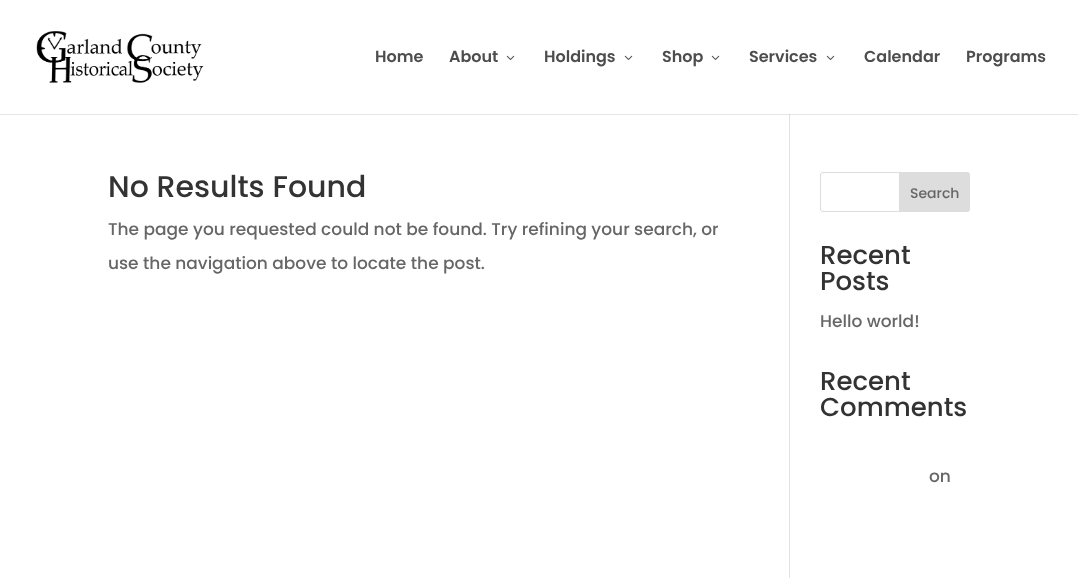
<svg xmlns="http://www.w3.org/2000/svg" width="1078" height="578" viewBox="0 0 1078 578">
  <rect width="100%" height="100%" fill="#fff"/>
  <path d="M0 114h1078v1H0z" fill="#e6e6e6"/>
  <image x="36" y="31" width="168" height="52" href="img/1.png"/>
  <image x="506" y="55" width="9" height="5" href="img/2.png"/>
  <image x="624" y="55" width="9" height="5" href="img/2.png"/>
  <image x="711" y="55" width="9" height="5" href="img/2.png"/>
  <image x="826" y="55" width="9" height="5" href="img/2.png"/>
  <path d="M789 114h1v464H789z" fill="#e2e2e2"/>
  <path d="M789 114h1v1H789z" fill="#cbcbcb"/>
  <rect x="820.5" y="172.5" width="149" height="39" rx="2.5" fill="none" stroke="#ddd"/>
  <path d="M899.5 172.5H967C968.5 172.5 969.5 173.5 969.5 175V209C969.5 210.5 968.5 211.5 967 211.5H899.5Z" fill="#ddd" stroke="#ddd"/>
  <g font-family="Poppins" font-size="16" font-weight="600" fill="#4d4d4d">
    <text x="375" y="62">Home</text>
    <text x="449" y="62">About</text>
    <text x="544" y="62">Holdings</text>
    <text x="662" y="62">Shop</text>
    <text x="749" y="62">Services</text>
    <text x="864" y="62">Calendar</text>
    <text x="966" y="62">Programs</text>
  </g>
  <text x="108" y="197" font-family="Poppins" font-size="30" font-weight="500" fill="#333">No Results Found</text>
  <g font-family="Poppins" font-size="17" font-weight="500" fill="#666">
    <text x="108" y="235">The page you requested could not be found. Try refining your search, or</text>
    <text x="108" y="269">use the navigation above to locate the post.</text>
  </g>
  <text x="910" y="198" font-family="Poppins" font-size="14" font-weight="500" fill="#666">Search</text>
  <g font-family="Poppins" font-size="26" font-weight="500" fill="#333">
    <text x="820" y="264">Recent</text>
    <text x="820" y="290">Posts</text>
  </g>
  <text x="820" y="327" font-family="Poppins" font-size="17" font-weight="500" fill="#666">Hello world!</text>
  <g font-family="Poppins" font-size="26" font-weight="500" fill="#333">
    <text x="820" y="390">Recent</text>
    <text x="820" y="416">Comments</text>
  </g>
  <text x="929" y="482" font-family="Poppins" font-size="17" font-weight="500" fill="#666">on</text>
</svg>
